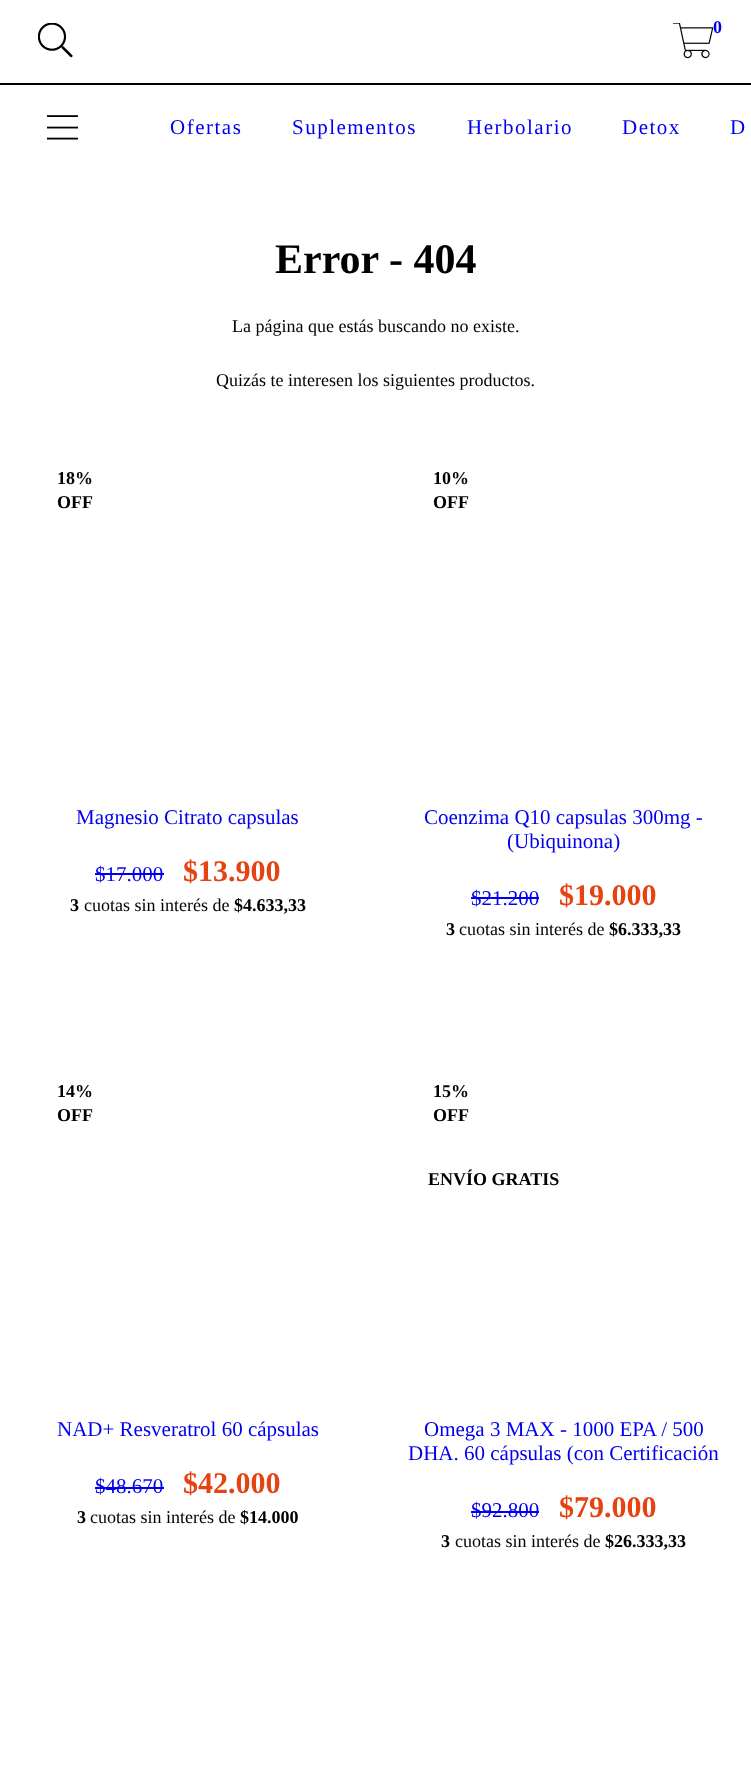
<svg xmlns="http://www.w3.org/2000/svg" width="751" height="1785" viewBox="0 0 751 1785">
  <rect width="100%" height="100%" fill="#fff"/>
  <image x="38" y="23" width="35" height="35" href="img/1.png"/>
  <image x="672" y="23" width="42" height="36" href="img/2.png"/>
  <path d="M0 83h751v2H0z" fill="#000"/>
  <image x="47" y="115" width="31" height="25" href="img/3.png"/>
  <path d="M95 873h69v2H95z" fill="#00e"/>
  <path d="M471 897h68v2H471z" fill="#00e"/>
  <path d="M95 1487h69v2H95z" fill="#00e"/>
  <path d="M471 1511h68v2H471z" fill="#00e"/>
  <text x="713" y="33" font-family="Liberation Serif" font-size="18" font-weight="bold" fill="#00e">0</text>
  <g font-family="Liberation Serif" font-size="21" letter-spacing="1.5" fill="#00e">
    <text x="170" y="134">Ofertas</text>
    <text x="292" y="134">Suplementos</text>
    <text x="467" y="134">Herbolario</text>
    <text x="622" y="134">Detox</text>
    <text x="730" y="134">D</text>
  </g>
  <text x="275" y="273" font-family="Liberation Serif" font-size="42" font-weight="bold" fill="#000">Error - 404</text>
  <g font-family="Liberation Serif" font-size="18" fill="#000">
    <text x="232" y="332">La página que estás buscando no existe.</text>
    <text x="216" y="386">Quizás te interesen los siguientes productos.</text>
  </g>
  <g font-family="Liberation Serif" font-size="18" font-weight="bold" fill="#000">
    <text x="57" y="484">18%</text>
    <text x="57" y="508">OFF</text>
  </g>
  <g font-family="Liberation Serif" font-size="21" fill="#00e">
    <text x="76" y="824">Magnesio Citrato capsulas</text>
    <text x="95" y="881">$17.000</text>
  </g>
  <text x="183" y="881" font-family="Liberation Serif" font-size="30" font-weight="bold" fill="#e54312">$13.900</text>
  <text x="70" y="911" font-family="Liberation Serif" font-size="18" font-weight="bold" fill="#000">3</text>
  <text x="84" y="911" font-family="Liberation Serif" font-size="18" fill="#000">cuotas sin interés de</text>
  <g font-family="Liberation Serif" font-size="18" font-weight="bold" fill="#000">
    <text x="234" y="911">$4.633,33</text>
    <text x="433" y="484">10%</text>
    <text x="433" y="508">OFF</text>
  </g>
  <g font-family="Liberation Serif" font-size="21" fill="#00e">
    <text x="424" y="824">Coenzima Q10 capsulas 300mg -</text>
    <text x="507" y="848">(Ubiquinona)</text>
    <text x="471" y="905">$21.200</text>
  </g>
  <text x="559" y="905" font-family="Liberation Serif" font-size="30" font-weight="bold" fill="#e54312">$19.000</text>
  <text x="446" y="935" font-family="Liberation Serif" font-size="18" font-weight="bold" fill="#000">3</text>
  <text x="459" y="935" font-family="Liberation Serif" font-size="18" fill="#000">cuotas sin interés de</text>
  <g font-family="Liberation Serif" font-size="18" font-weight="bold" fill="#000">
    <text x="609" y="935">$6.333,33</text>
    <text x="57" y="1097">14%</text>
    <text x="57" y="1121">OFF</text>
  </g>
  <g font-family="Liberation Serif" font-size="21" fill="#00e">
    <text x="57" y="1436">NAD+ Resveratrol 60 cápsulas</text>
    <text x="95" y="1493">$48.670</text>
  </g>
  <text x="183" y="1493" font-family="Liberation Serif" font-size="30" font-weight="bold" fill="#e54312">$42.000</text>
  <text x="77" y="1523" font-family="Liberation Serif" font-size="18" font-weight="bold" fill="#000">3</text>
  <text x="90" y="1523" font-family="Liberation Serif" font-size="18" fill="#000">cuotas sin interés de</text>
  <g font-family="Liberation Serif" font-size="18" font-weight="bold" fill="#000">
    <text x="240" y="1523">$14.000</text>
    <text x="433" y="1097">15%</text>
    <text x="433" y="1121">OFF</text>
    <text x="428" y="1185">ENVÍO GRATIS</text>
  </g>
  <g font-family="Liberation Serif" font-size="21" fill="#00e">
    <text x="424" y="1436">Omega 3 MAX - 1000 EPA / 500</text>
    <text x="408" y="1460">DHA. 60 cápsulas (con Certificación</text>
    <text x="471" y="1517">$92.800</text>
  </g>
  <text x="559" y="1517" font-family="Liberation Serif" font-size="30" font-weight="bold" fill="#e54312">$79.000</text>
  <text x="441" y="1547" font-family="Liberation Serif" font-size="18" font-weight="bold" fill="#000">3</text>
  <text x="455" y="1547" font-family="Liberation Serif" font-size="18" fill="#000">cuotas sin interés de</text>
  <text x="605" y="1547" font-family="Liberation Serif" font-size="18" font-weight="bold" fill="#000">$26.333,33</text>
</svg>
